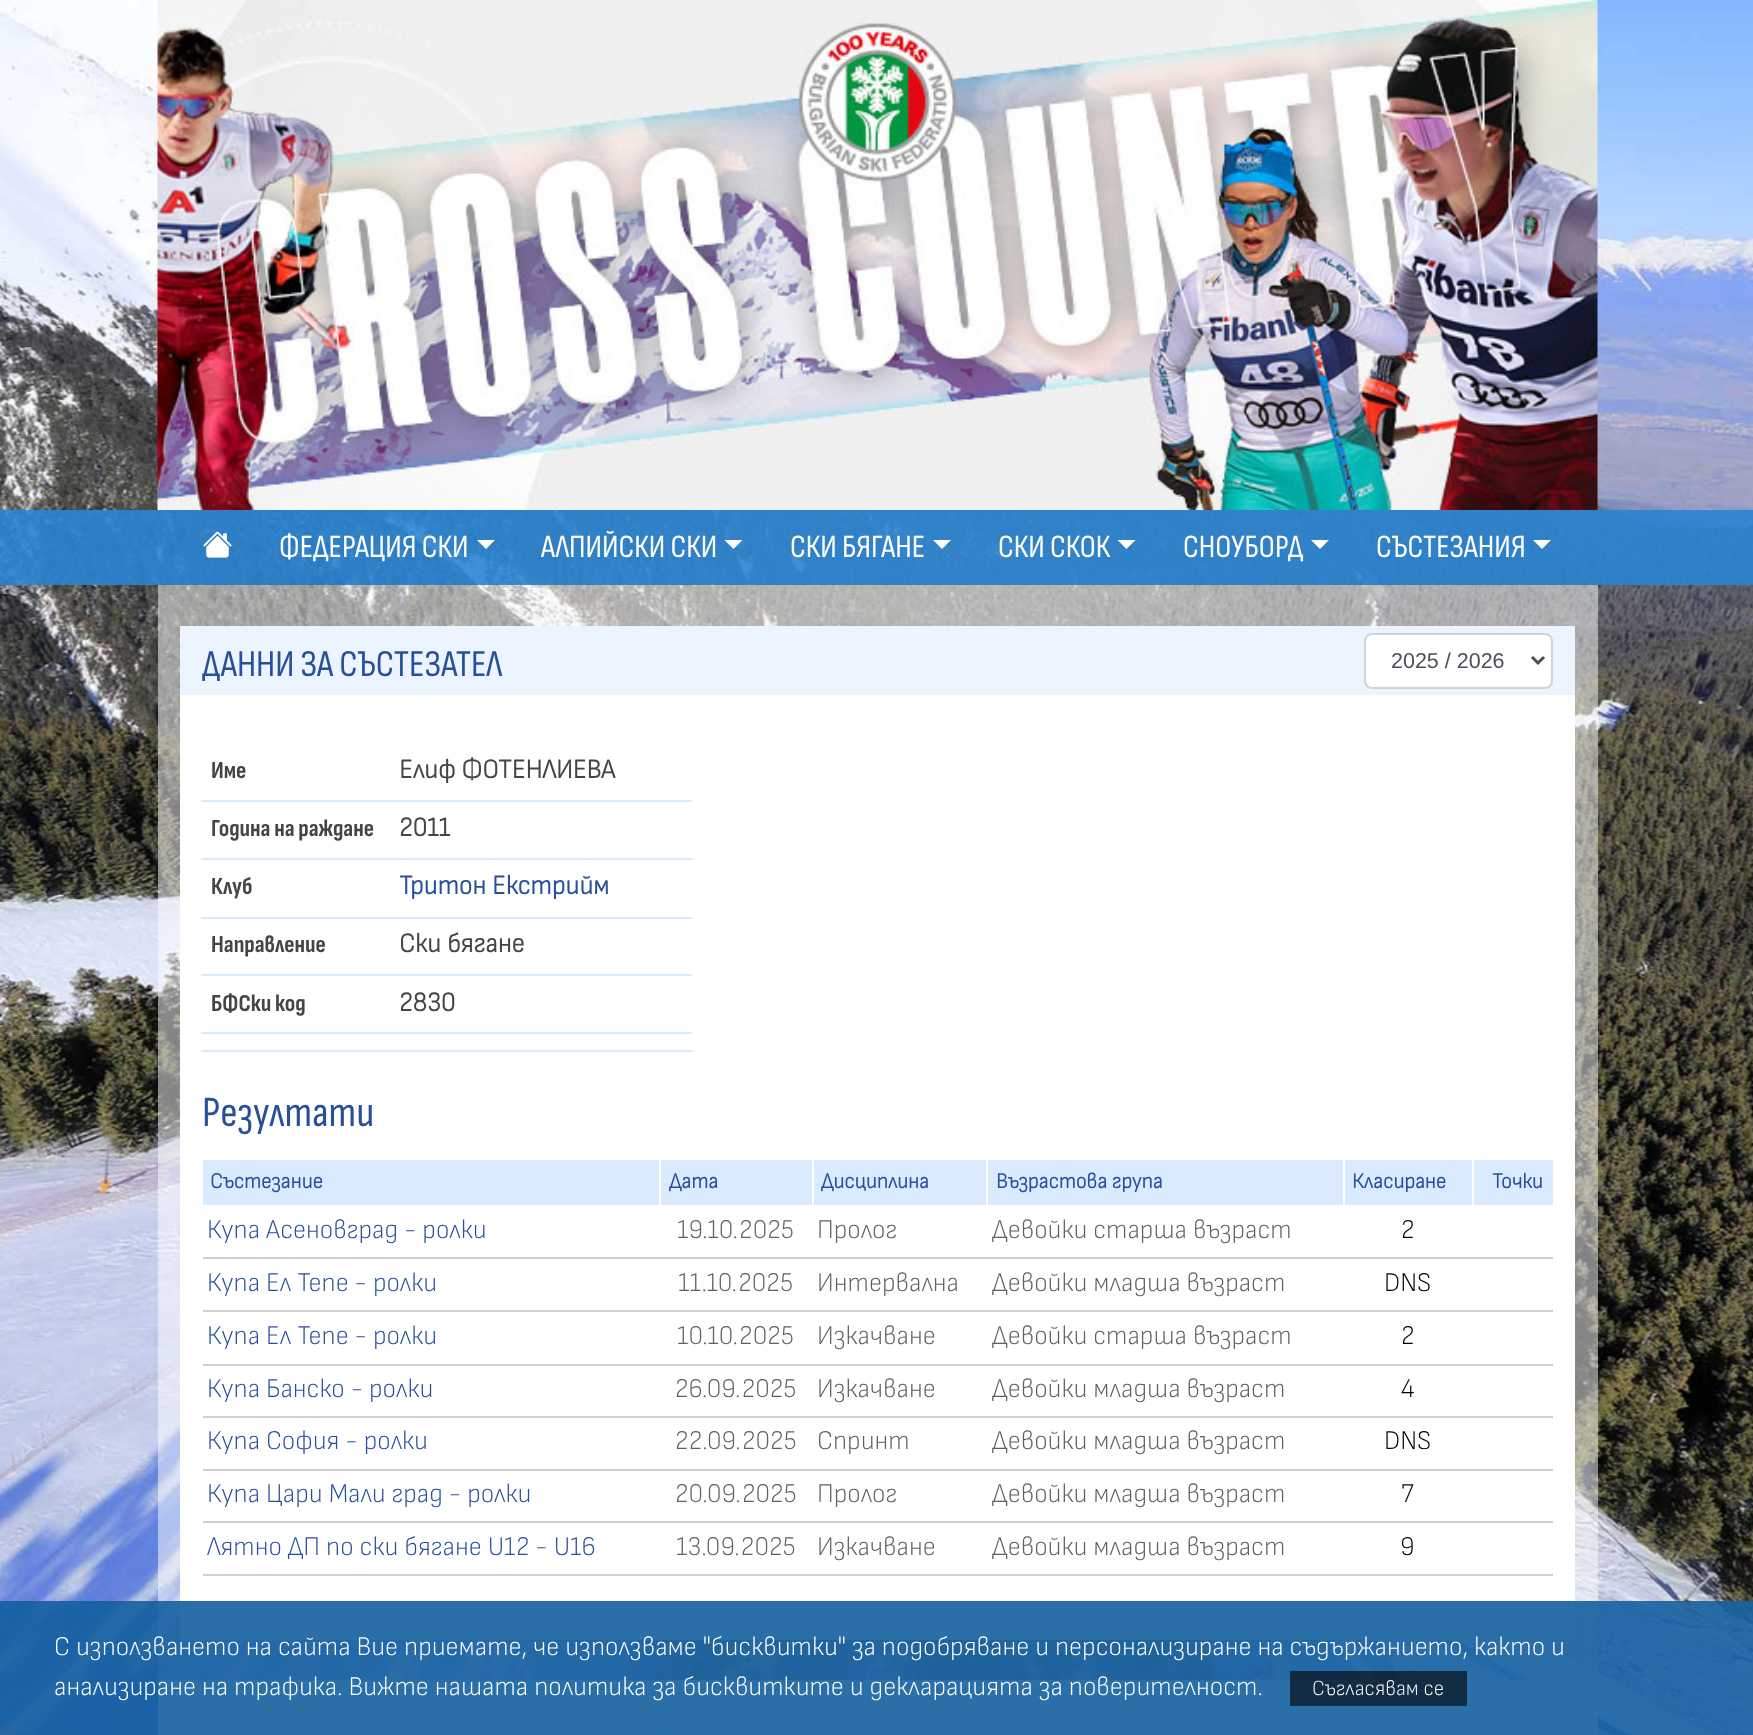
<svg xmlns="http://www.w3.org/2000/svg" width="1753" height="1735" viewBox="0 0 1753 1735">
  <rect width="100%" height="100%" fill="#fff"/>
  <image x="0" y="0" width="1753" height="1735" href="img/1.png"/>
  <image x="157" y="0" width="1441" height="510" href="img/2.png"/>
  <path d="M0 510h1753v75H0z" fill="#2a84d1e6"/>
  <image x="203" y="531" width="29" height="27" href="img/3.png"/>
  <path d="M477 540H495L486 549Z" fill="#fff"/>
  <path d="M724.5 540H742.5L733.5 549Z" fill="#fff"/>
  <path d="M933 540H951L942 549Z" fill="#fff"/>
  <path d="M1117.5 540H1135.5L1126.5 549Z" fill="#fff"/>
  <path d="M1311 540H1329L1320 549Z" fill="#fff"/>
  <path d="M1533 540H1551L1542 549Z" fill="#fff"/>
  <path d="M158 585h1440v1095H158z" fill="#ffffff80"/>
  <path d="M180 695h1395v945H180z" fill="#fff"/>
  <path d="M180 626h1395v69H180z" fill="#ecf4ff"/>
  <rect x="1365" y="634" width="187" height="54" rx="7" fill="#fff" stroke="#ced4da" stroke-width="2"/>
  <path d="M1532 657L1538 663L1544 657" fill="none" stroke="#495057" stroke-width="3"/>
  <path d="M201 800h491v2H201z" fill="#daeaff"/>
  <path d="M201 858h491v2H201z" fill="#daeaff"/>
  <path d="M201 917h491v2H201z" fill="#daeaff"/>
  <path d="M201 974h491v2H201z" fill="#daeaff"/>
  <path d="M201 1032h491v2H201z" fill="#daeaff"/>
  <path d="M201 1050h491v2H201z" fill="#daeaff"/>
  <path d="M203 1160h456v45H203z" fill="#daeaff"/>
  <path d="M661 1160h151v45H661z" fill="#daeaff"/>
  <path d="M814 1160h172v45H814z" fill="#daeaff"/>
  <path d="M988 1160h355v45H988z" fill="#daeaff"/>
  <path d="M1345 1160h127v45H1345z" fill="#daeaff"/>
  <path d="M1474 1160h79v45H1474z" fill="#daeaff"/>
  <path d="M203 1257h1350v2H203z" fill="#cfcfcf"/>
  <path d="M203 1310h1350v2H203z" fill="#cfcfcf"/>
  <path d="M203 1364h1350v2H203z" fill="#cfcfcf"/>
  <path d="M203 1416h1350v2H203z" fill="#cfcfcf"/>
  <path d="M203 1469h1350v2H203z" fill="#cfcfcf"/>
  <path d="M203 1521h1350v2H203z" fill="#cfcfcf"/>
  <path d="M203 1574h1350v2H203z" fill="#cfcfcf"/>
  <path d="M158 1680h1440v55H158z" fill="#fff"/>
  <image x="660" y="1734" width="29" height="1" href="img/4.png"/>
  <path d="M0 1601h1753v134H0z" fill="#145fa0e6"/>
  <path d="M1290 1671h177v35H1290z" fill="#00000099"/>
  <g font-family="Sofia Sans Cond" font-size="32.5" fill="#fff">
    <text x="279" y="557">ФЕДЕРАЦИЯ СКИ</text>
    <text x="541" y="557">АЛПИЙСКИ СКИ</text>
    <text x="790" y="557">СКИ БЯГАНЕ</text>
    <text x="998" y="557">СКИ СКОК</text>
    <text x="1183" y="557">СНОУБОРД</text>
    <text x="1376" y="557">СЪСТЕЗАНИЯ</text>
  </g>
  <text x="202" y="676" font-family="Sofia Sans Cond" font-size="37.75" fill="#284f9a">ДАННИ ЗА СЪСТЕЗАТЕЛ</text>
  <text x="1391" y="668" font-family="Liberation Sans" font-size="21.5" fill="#495057">2025 / 2026</text>
  <text x="211" y="778" font-family="Sofia Sans Cond" font-size="24.25" font-weight="bold" fill="#454545">Име</text>
  <text x="399" y="778" font-family="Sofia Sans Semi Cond" font-size="27" font-weight="bold" fill="#454545">Елиф ФОТЕНЛИЕВА</text>
  <text x="211" y="836" font-family="Sofia Sans Cond" font-size="24.25" font-weight="bold" fill="#454545">Година на раждане</text>
  <text x="399" y="836" font-family="Sofia Sans Semi Cond" font-size="27" font-weight="bold" fill="#454545">2011</text>
  <text x="211" y="894" font-family="Sofia Sans Cond" font-size="24.25" font-weight="bold" fill="#454545">Клуб</text>
  <text x="399" y="894" font-family="Sofia Sans Semi Cond" font-size="27" font-weight="bold" fill="#284f9a">Тритон Екстрийм</text>
  <text x="211" y="952" font-family="Sofia Sans Cond" font-size="24.25" font-weight="bold" fill="#454545">Направление</text>
  <text x="399" y="952" font-family="Sofia Sans Semi Cond" font-size="27" font-weight="bold" fill="#454545">Ски бягане</text>
  <text x="211" y="1011" font-family="Sofia Sans Cond" font-size="24.25" font-weight="bold" fill="#454545">БФСки код</text>
  <text x="399" y="1011" font-family="Sofia Sans Semi Cond" font-size="27" font-weight="bold" fill="#454545">2830</text>
  <text x="202" y="1126" font-family="Sofia Sans Cond" font-size="43" fill="#284f9a">Резултати</text>
  <g font-family="Sofia Sans Semi Cond" font-size="21.5" font-weight="bold" fill="#284f9a">
    <text x="210" y="1188">Състезание</text>
    <text x="669" y="1188">Дата</text>
    <text x="821" y="1188">Дисциплина</text>
    <text x="996" y="1188">Възрастова група</text>
    <text x="1352" y="1188">Класиране</text>
    <text x="1492" y="1188">Точки</text>
  </g>
  <text x="207" y="1238" font-family="Sofia Sans Semi Cond" font-size="27" font-weight="300" fill="#284f9a">Купа Асеновград - ролки</text>
  <g font-family="Sofia Sans Semi Cond" font-size="27" font-weight="300" fill="#606060">
    <text x="677" y="1238">19.10.2025</text>
    <text x="817" y="1238">Пролог</text>
    <text x="992" y="1238">Девойки старша възраст</text>
  </g>
  <text x="1401" y="1238" font-family="Sofia Sans Semi Cond" font-size="27" font-weight="300" fill="#000">2</text>
  <text x="207" y="1291" font-family="Sofia Sans Semi Cond" font-size="27" font-weight="300" fill="#284f9a">Купа Ел Тепе - ролки</text>
  <g font-family="Sofia Sans Semi Cond" font-size="27" font-weight="300" fill="#606060">
    <text x="678" y="1291">11.10.2025</text>
    <text x="817" y="1291">Интервална</text>
    <text x="992" y="1291">Девойки младша възраст</text>
  </g>
  <text x="1384" y="1291" font-family="Sofia Sans Semi Cond" font-size="27" font-weight="300" fill="#000">DNS</text>
  <text x="207" y="1344" font-family="Sofia Sans Semi Cond" font-size="27" font-weight="300" fill="#284f9a">Купа Ел Тепе - ролки</text>
  <g font-family="Sofia Sans Semi Cond" font-size="27" font-weight="300" fill="#606060">
    <text x="677" y="1344">10.10.2025</text>
    <text x="817" y="1344">Изкачване</text>
    <text x="992" y="1344">Девойки старша възраст</text>
  </g>
  <text x="1401" y="1344" font-family="Sofia Sans Semi Cond" font-size="27" font-weight="300" fill="#000">2</text>
  <text x="207" y="1397" font-family="Sofia Sans Semi Cond" font-size="27" font-weight="300" fill="#284f9a">Купа Банско - ролки</text>
  <g font-family="Sofia Sans Semi Cond" font-size="27" font-weight="300" fill="#606060">
    <text x="675" y="1397">26.09.2025</text>
    <text x="817" y="1397">Изкачване</text>
    <text x="992" y="1397">Девойки младша възраст</text>
  </g>
  <text x="1401" y="1397" font-family="Sofia Sans Semi Cond" font-size="27" font-weight="300" fill="#000">4</text>
  <text x="207" y="1449" font-family="Sofia Sans Semi Cond" font-size="27" font-weight="300" fill="#284f9a">Купа София - ролки</text>
  <g font-family="Sofia Sans Semi Cond" font-size="27" font-weight="300" fill="#606060">
    <text x="675" y="1449">22.09.2025</text>
    <text x="817" y="1449">Спринт</text>
    <text x="992" y="1449">Девойки младша възраст</text>
  </g>
  <text x="1384" y="1449" font-family="Sofia Sans Semi Cond" font-size="27" font-weight="300" fill="#000">DNS</text>
  <text x="207" y="1502" font-family="Sofia Sans Semi Cond" font-size="27" font-weight="300" fill="#284f9a">Купа Цари Мали град - ролки</text>
  <g font-family="Sofia Sans Semi Cond" font-size="27" font-weight="300" fill="#606060">
    <text x="675" y="1502">20.09.2025</text>
    <text x="817" y="1502">Пролог</text>
    <text x="992" y="1502">Девойки младша възраст</text>
  </g>
  <text x="1401" y="1502" font-family="Sofia Sans Semi Cond" font-size="27" font-weight="300" fill="#000">7</text>
  <text x="207" y="1555" font-family="Sofia Sans Semi Cond" font-size="27" font-weight="300" fill="#284f9a">Лятно ДП по ски бягане U12 - U16</text>
  <g font-family="Sofia Sans Semi Cond" font-size="27" font-weight="300" fill="#606060">
    <text x="676" y="1555">13.09.2025</text>
    <text x="817" y="1555">Изкачване</text>
    <text x="992" y="1555">Девойки младша възраст</text>
  </g>
  <text x="1400" y="1555" font-family="Sofia Sans Semi Cond" font-size="27" font-weight="300" fill="#000">9</text>
  <g font-family="Sofia Sans Semi Cond" font-size="27" font-weight="300" fill="#fff">
    <text x="54" y="1655">С използването на сайта Вие приемате, че използваме "бисквитки" за подобряване и персонализиране на съдържанието, както и</text>
    <text x="54" y="1695">анализиране на трафика. Вижте нашата политика за бисквитките и декларацията за поверителност.</text>
  </g>
  <text x="1312" y="1695" font-family="Sofia Sans Semi Cond" font-size="21.5" font-weight="300" fill="#fff">Съгласявам се</text>
</svg>
